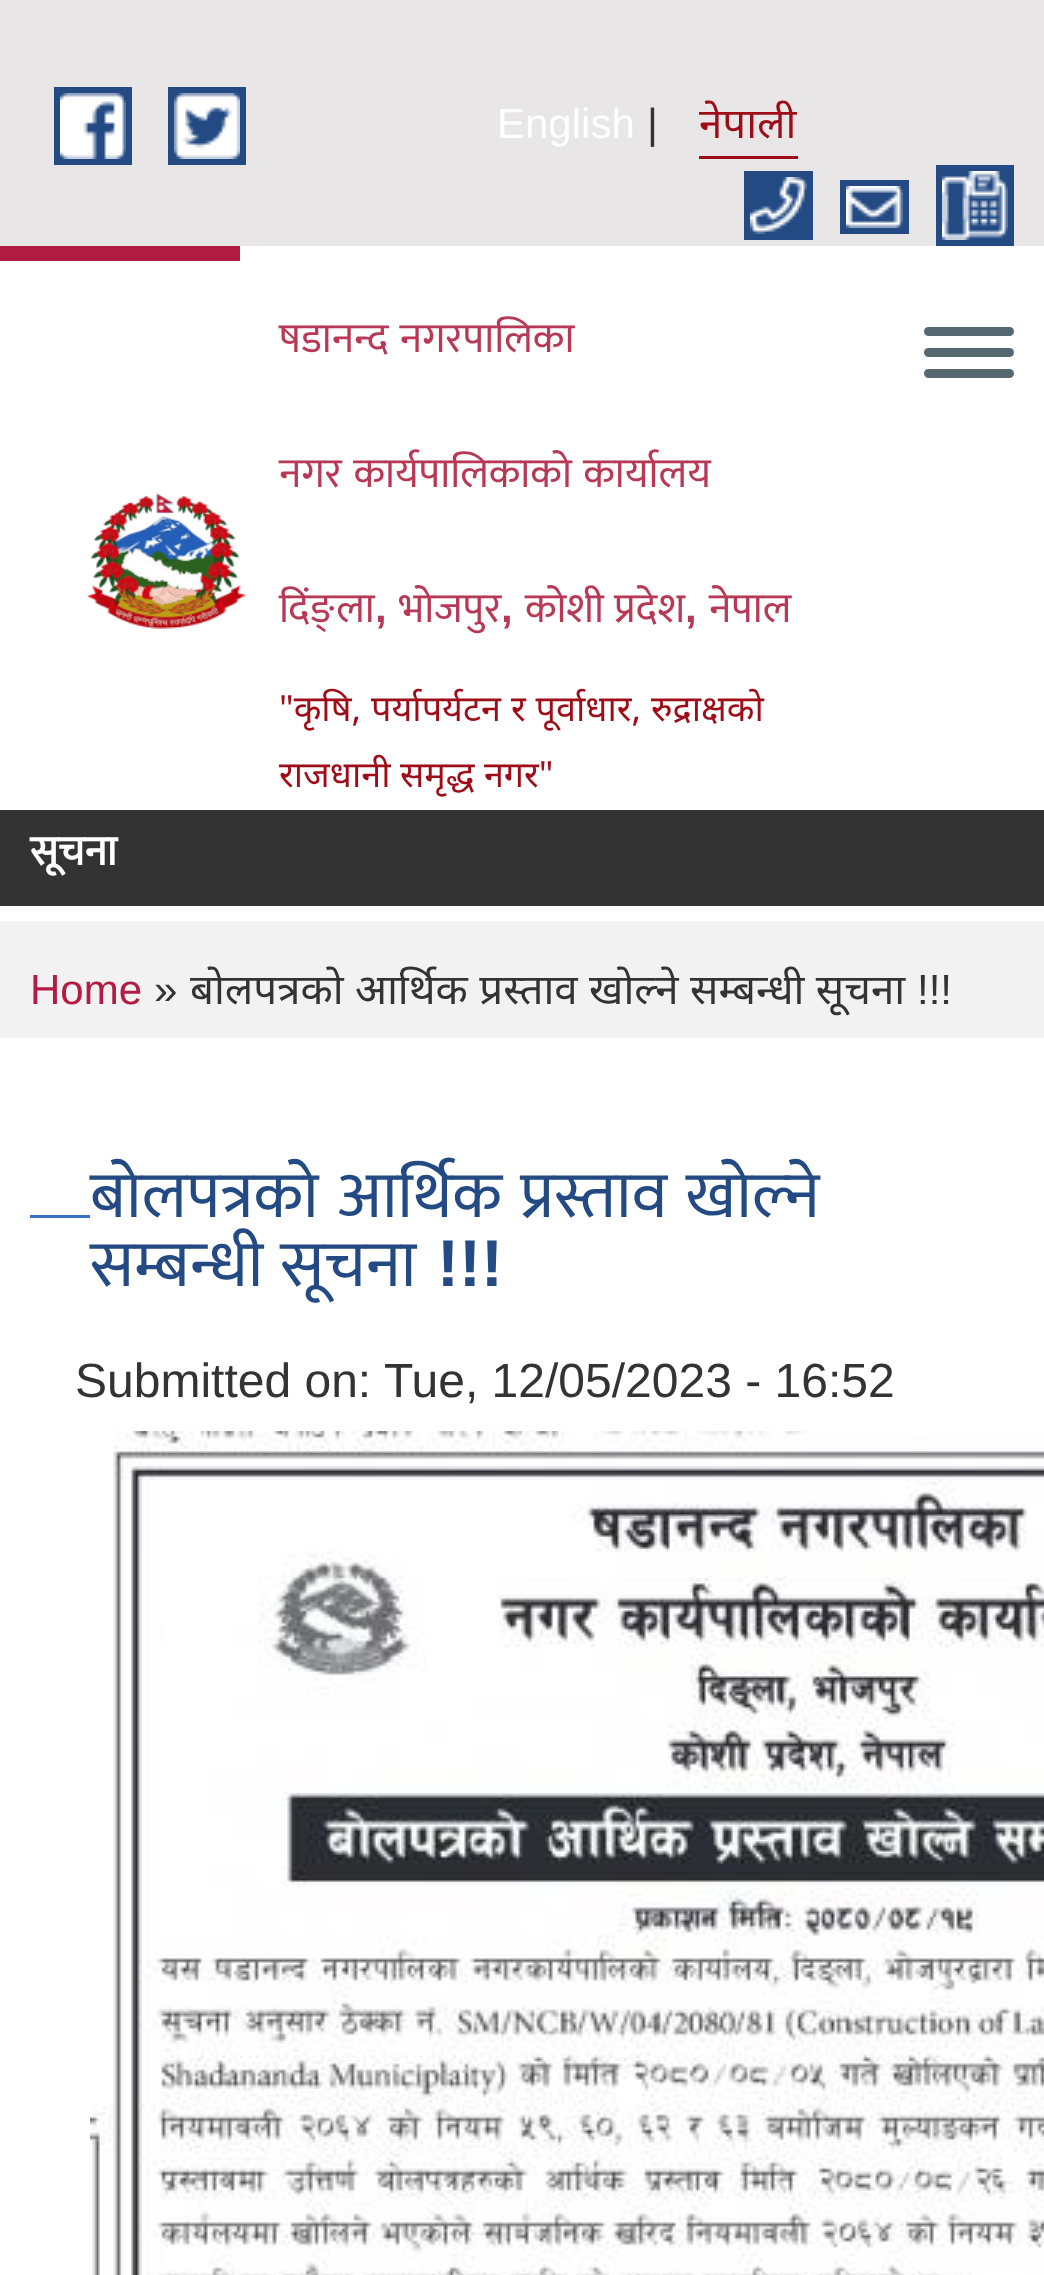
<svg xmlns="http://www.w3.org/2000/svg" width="1044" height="2275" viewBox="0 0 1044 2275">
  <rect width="100%" height="100%" fill="#fff"/>
  <path d="M0 0h1044v246H0z" fill="#e8e6e6"/>
  <path d="M54 87h78v78H54z" fill="#234a83"/>
  <path d="M168 87h78v78H168z" fill="#234a83"/>
  <image x="60" y="93" width="66" height="66" href="img/1.png"/>
  <image x="174" y="93" width="66" height="66" href="img/2.png"/>
  <path d="M699 156h99v3H699z" fill="#9e0c18"/>
  <path d="M744 171h69v69H744z" fill="#234a83"/>
  <path d="M936 165h78v81H936z" fill="#234a83"/>
  <image x="750" y="177" width="57" height="57" href="img/3.png"/>
  <path d="M840 180h69v54H840z" fill="#234a83"/>
  <image x="942" y="171" width="66" height="69" href="img/4.png"/>
  <image x="846" y="186" width="57" height="42" href="img/5.png"/>
  <path d="M0 246h240v15H0z" fill="#b21c42"/>
  <image x="86" y="493" width="161" height="136" href="img/6.png"/>
  <rect x="924" y="327" width="90" height="9" rx="4.5" fill="#566973"/>
  <rect x="924" y="348" width="90" height="9" rx="4.5" fill="#566973"/>
  <rect x="924" y="369" width="90" height="9" rx="4.5" fill="#566973"/>
  <path d="M0 810h1044v96H0z" fill="#333"/>
  <path d="M0 921h1044v117H0z" fill="#f2f2f2"/>
  <path d="M30 1215h60v3H30z" fill="#376fc2"/>
  <image x="90" y="1431" width="954" height="844" href="img/7.png"/>
  <text x="497" y="138" font-family="Liberation Sans" font-size="42" fill="#fff">English</text>
  <text x="647" y="138" font-family="Liberation Sans" font-size="42" fill="#333">|</text>
  <text x="699" y="138" font-family="Noto Sans" font-size="42" fill="#9e0c18">नेपाली</text>
  <g font-family="Mukta" font-size="42" fill="#b83955">
    <text x="279" y="352" word-spacing="2">षडानन्द नगरपालिका</text>
    <text x="279" y="487" word-spacing="2">नगर कार्यपालिकाको कार्यालय</text>
    <text x="279" y="622">दिंङ्ला</text>
  </g>
  <text x="375" y="622" font-family="Liberation Sans" font-size="42" font-weight="bold" fill="#b83955">,</text>
  <text x="399" y="622" font-family="Mukta" font-size="42" fill="#b83955">भोजपुर</text>
  <text x="501" y="622" font-family="Liberation Sans" font-size="42" font-weight="bold" fill="#b83955">,</text>
  <text x="525" y="622" word-spacing="1" font-family="Mukta" font-size="42" fill="#b83955">कोशी प्रदेश</text>
  <text x="685" y="622" font-family="Liberation Sans" font-size="42" font-weight="bold" fill="#b83955">,</text>
  <text x="709" y="622" font-family="Mukta" font-size="42" fill="#b83955">नेपाल</text>
  <g font-family="Noto Sans" font-size="36" fill="#9e0c18">
    <text x="279" y="721" word-spacing="0.5">"कृषि, पर्यापर्यटन र पूर्वाधार, रुद्राक्षको</text>
    <text x="279" y="787">राजधानी समृद्ध नगर"</text>
  </g>
  <text x="30" y="865" font-family="Mukta" font-size="42" font-weight="bold" fill="#fff">सूचना</text>
  <text x="30" y="1004" font-family="Liberation Sans" font-size="42" fill="#b21c42">Home</text>
  <text x="154" y="1004" font-family="Liberation Sans" font-size="42" fill="#333">»</text>
  <text x="190" y="1004" word-spacing="0.5" font-family="Noto Sans" font-size="42" fill="#333">बोलपत्रको आर्थिक प्रस्ताव खोल्ने सम्बन्धी सूचना</text>
  <text x="917" y="1004" font-family="Liberation Sans" font-size="42" fill="#333">!!!</text>
  <g font-family="Mukta" font-size="66" fill="#234a83">
    <text x="90" y="1217" word-spacing="4">बोलपत्रको आर्थिक प्रस्ताव खोल्ने</text>
    <text x="90" y="1286" word-spacing="2">सम्बन्धी सूचना</text>
  </g>
  <text x="437" y="1286" font-family="Liberation Sans" font-size="66" font-weight="bold" fill="#234a83">!!!</text>
  <g font-family="Liberation Sans" font-size="48" fill="#333">
    <text x="75" y="1397">Submitted on:</text>
    <text x="384" y="1397">Tue, 12/05/2023 - 16:52</text>
  </g>
</svg>
